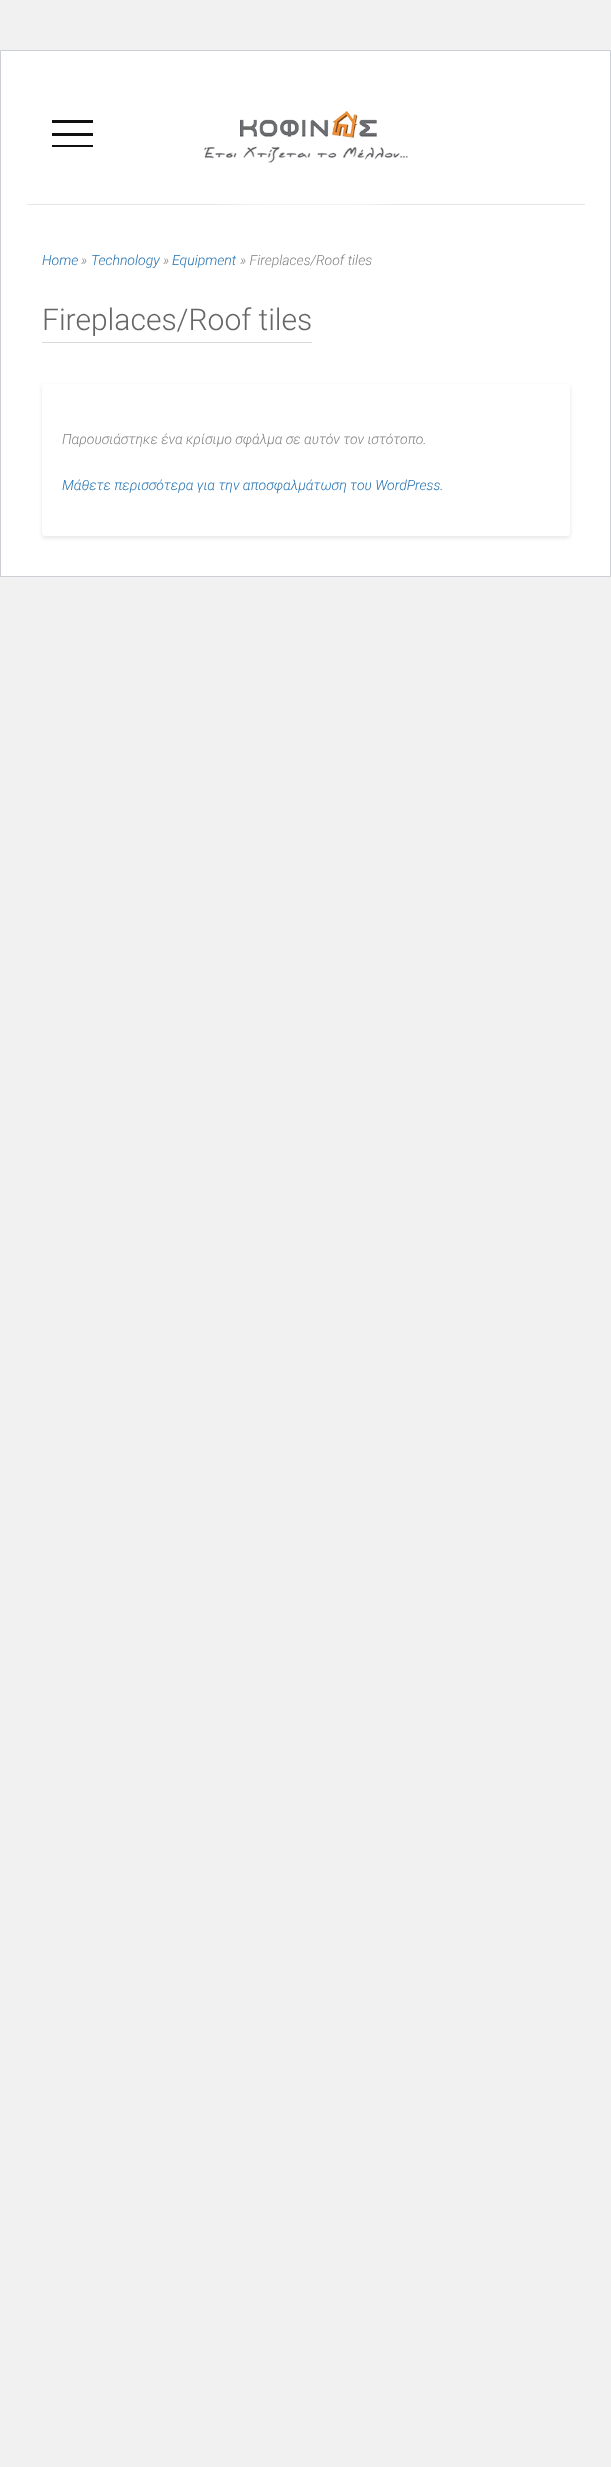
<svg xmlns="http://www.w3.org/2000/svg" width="611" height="2467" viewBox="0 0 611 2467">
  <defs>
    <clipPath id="clip1"><path d="M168 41H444V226H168ZM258 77H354C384 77 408 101 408 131V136C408 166 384 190 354 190H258C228 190 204 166 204 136V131C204 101 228 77 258 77Z" clip-rule="evenodd"/></clipPath>
  </defs>
  <rect width="100%" height="100%" fill="#f1f1f1"/>
  <path d="M0.5 50.5h610v526H0.5z" fill="#fff" stroke="#ccd0d4"/>
  <path d="M27 204h558v1H27z" fill="#e6e6e6"/>
  <path d="M52 120h41v3H52z" fill="#101010"/>
  <path d="M52 133h41v3H52z" fill="#101010"/>
  <path d="M52 145h41v2H52z" fill="#101010"/>
  <g clip-path="url(#clip1)">
    <rect x="190" y="63" width="232" height="141" rx="68" fill="#fff" filter="blur(7px)"/>
  </g>
  <image x="204" y="111" width="204" height="52" href="img/1.png"/>
  <path d="M42 342h270v1H42z" fill="#dadada"/>
  <rect x="42" y="386" width="528" height="152" rx="3" fill="#0000001a" filter="blur(2px)"/>
  <rect x="42" y="384" width="528" height="152" rx="3" fill="#fff"/>
  <text x="42" y="265" font-family="Roboto" font-size="14" font-weight="300" font-style="italic" fill="#2271b1">Home</text>
  <text x="81" y="265" font-family="Roboto" font-size="14" font-weight="300" font-style="italic" fill="#808080">»</text>
  <text x="91" y="265" font-family="Roboto" font-size="14" font-weight="300" font-style="italic" fill="#2271b1">Technology</text>
  <text x="163" y="265" font-family="Roboto" font-size="14" font-weight="300" font-style="italic" fill="#808080">»</text>
  <text x="172" y="265" font-family="Roboto" font-size="14" font-weight="300" font-style="italic" fill="#2271b1">Equipment</text>
  <text x="240" y="265" font-family="Roboto" font-size="14" font-weight="300" font-style="italic" fill="#808080">» Fireplaces/Roof tiles</text>
  <text x="42" y="330" font-family="Roboto" font-size="30" font-weight="300" fill="#666">Fireplaces/Roof tiles</text>
  <text x="62" y="444" font-family="Roboto" font-size="14" font-weight="300" font-style="italic" fill="#808080">Παρουσιάστηκε ένα κρίσιμο σφάλμα σε αυτόν τον ιστότοπο.</text>
  <text x="62" y="490" font-family="Roboto" font-size="14" font-weight="300" font-style="italic" fill="#2271b1">Μάθετε περισσότερα για την αποσφαλμάτωση του WordPress.</text>
</svg>
